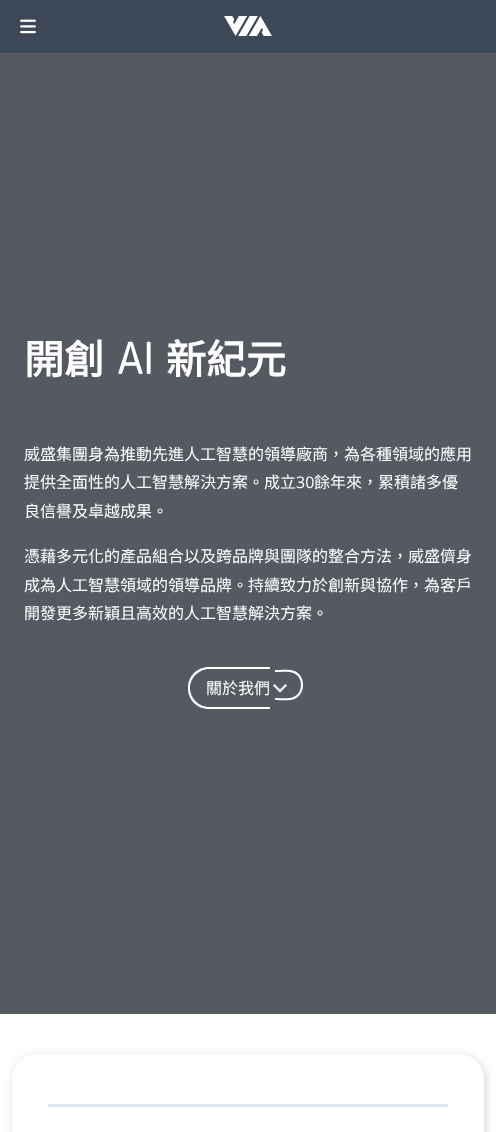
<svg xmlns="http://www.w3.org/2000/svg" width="496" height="1132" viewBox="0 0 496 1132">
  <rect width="100%" height="100%" fill="#fff"/>
  <path d="M0 0h496v53H0z" fill="#3c4758"/>
  <image x="20" y="19" width="16" height="15" href="img/1.png"/>
  <image x="224" y="16" width="48" height="20" href="img/2.png"/>
  <path d="M0 53h496v961H0z" fill="#555a62"/>
  <path d="M209 667H270V709H209C197 709 188 700 188 688C188 676 197 667 209 667ZM209 669H270V707H209C199 707 190 698 190 688C190 678 199 669 209 669Z" fill="#fff" fill-rule="evenodd"/>
  <path d="M275 670C280.5 670 290 669 294.5 671C306 676 306 694 294.5 699C290 701 280.5 700 275 700ZM275 672C280 672 289.5 671 293.5 673C303.5 677 303.5 693 293.5 697C289.5 699 280 698 275 698Z" fill="#fff" fill-rule="evenodd"/>
  <path d="M287 685.5L280 692.5L278.5 691L285.5 684Z" fill="#fff"/>
  <path d="M281.5 691L280 692.5L273 685.5L274.5 684Z" fill="#fff"/>
  <rect x="14" y="1056" width="472" height="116" rx="25" fill="#32320533" filter="blur(5px)"/>
  <rect x="12" y="1054" width="472" height="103" rx="25" fill="#fff"/>
  <path d="M48 1104h400v3H48z" fill="#e1e7ef"/>
  <text x="24" y="374" font-family="Noto Sans CJK TC" font-size="40" font-weight="bold" fill="#fff">開創</text>
  <text x="117" y="374" font-family="Rajdhani" font-size="48" font-weight="bold" fill="#fff">AI</text>
  <text x="166" y="374" font-family="Noto Sans CJK TC" font-size="40" font-weight="bold" fill="#fff">新紀元</text>
  <g font-family="Noto Sans CJK TC" font-size="16" fill="#fff">
    <text x="24" y="460">威盛集團身為推動先進人工智慧的領導廠商，為各種領域的應用</text>
    <text x="24" y="488">提供全面性的人工智慧解決方案。成立</text>
  </g>
  <text x="296" y="488" font-family="Open Sans" font-size="16" fill="#fff">30</text>
  <g font-family="Noto Sans CJK TC" font-size="16" fill="#fff">
    <text x="314" y="488">餘年來，累積諸多優</text>
    <text x="24" y="517">良信譽及卓越成果。</text>
    <text x="24" y="562">憑藉多元化的產品組合以及跨品牌與團隊的整合方法，威盛儕身</text>
    <text x="24" y="591">成為人工智慧領域的領導品牌。持續致力於創新與協作，為客戶</text>
    <text x="24" y="619">開發更多新穎且高效的人工智慧解決方案。</text>
    <text x="206" y="694">關於我們</text>
  </g>
</svg>
